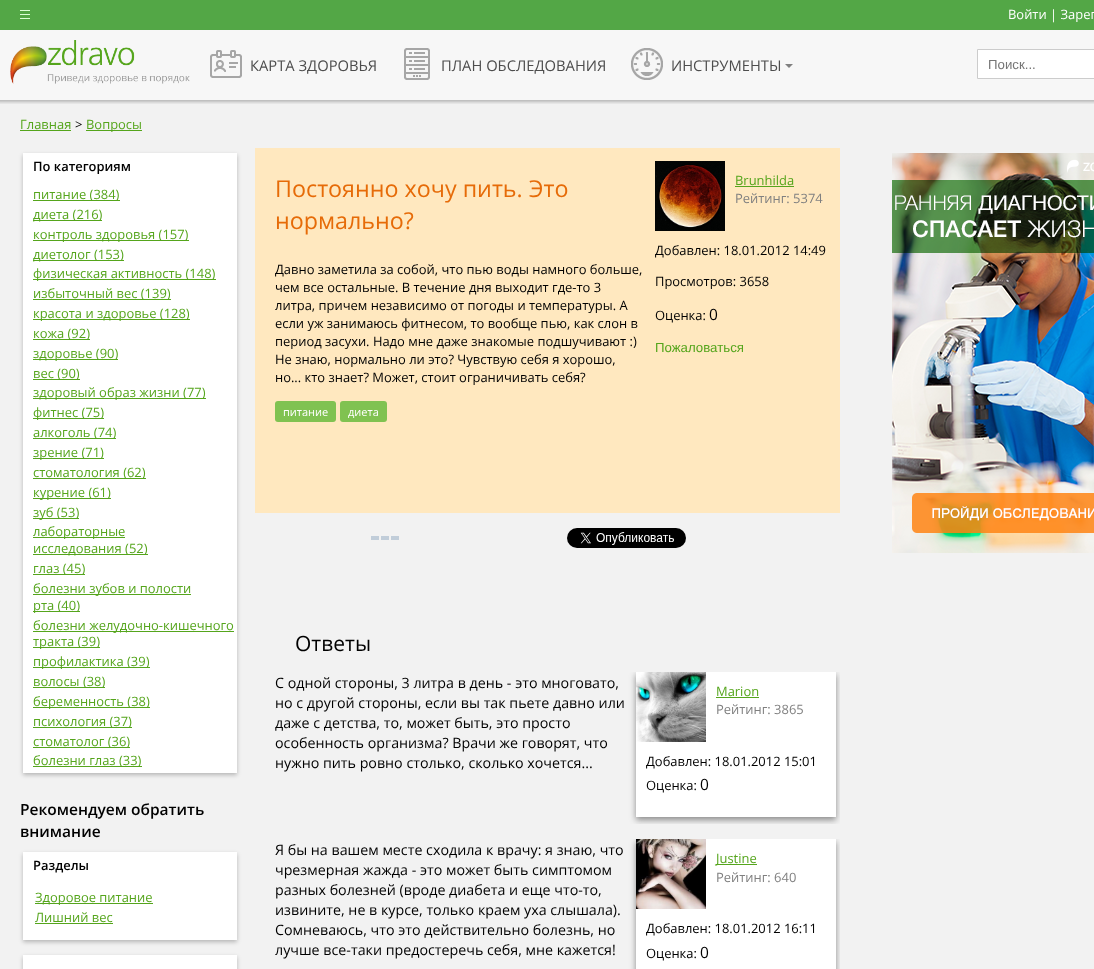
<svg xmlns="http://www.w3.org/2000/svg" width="1094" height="969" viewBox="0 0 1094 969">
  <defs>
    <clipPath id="clip1"><path d="M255 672h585v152H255z"/></clipPath>
    <clipPath id="clip2"><path d="M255 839h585v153H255z"/></clipPath>
  </defs>
  <rect width="100%" height="100%" fill="#f2f2f2"/>
  <image x="0" y="30" width="1094" height="74" href="img/1.png"/>
  <path d="M0 0h1094v30H0z" fill="#53a746"/>
  <image x="20" y="10" width="10" height="9" href="img/2.png"/>
  <image x="10" y="40" width="180" height="44" href="img/3.png"/>
  <image x="210" y="50" width="32" height="28" href="img/4.png"/>
  <image x="404" y="48" width="26" height="32" href="img/5.png"/>
  <image x="631" y="48" width="32" height="32" href="img/6.png"/>
  <path d="M785 64H793L789 68Z" fill="#808080"/>
  <path d="M977.5 49.5h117v29H977.5z" fill="#fff" stroke="#ccc"/>
  <path d="M20 130h51v1H20z" fill="#55a51c"/>
  <path d="M86 130h56v1H86z" fill="#55a51c"/>
  <path d="M23 155h214v620H23z" fill="#00000040" filter="blur(2px)"/>
  <path d="M23 153h214v620H23z" fill="#fff"/>
  <path d="M33 200h87v1H33z" fill="#55a51c"/>
  <path d="M33 220h69v1H33z" fill="#55a51c"/>
  <path d="M33 240h156v1H33z" fill="#55a51c"/>
  <path d="M33 260h91v1H33z" fill="#55a51c"/>
  <path d="M33 279h183v1H33z" fill="#55a51c"/>
  <path d="M33 299h138v1H33z" fill="#55a51c"/>
  <path d="M33 319h157v1H33z" fill="#55a51c"/>
  <path d="M33 339h57v1H33z" fill="#55a51c"/>
  <path d="M33 359h85v1H33z" fill="#55a51c"/>
  <path d="M33 379h47v1H33z" fill="#55a51c"/>
  <path d="M33 398h173v1H33z" fill="#55a51c"/>
  <path d="M33 418h71v1H33z" fill="#55a51c"/>
  <path d="M33 438h83v1H33z" fill="#55a51c"/>
  <path d="M33 458h71v1H33z" fill="#55a51c"/>
  <path d="M33 478h113v1H33z" fill="#55a51c"/>
  <path d="M33 498h78v1H33z" fill="#55a51c"/>
  <path d="M33 518h46v1H33z" fill="#55a51c"/>
  <path d="M33 537h92v1H33z" fill="#55a51c"/>
  <path d="M33 554h115v1H33z" fill="#55a51c"/>
  <path d="M33 574h52v1H33z" fill="#55a51c"/>
  <path d="M33 594h158v1H33z" fill="#55a51c"/>
  <path d="M33 611h47v1H33z" fill="#55a51c"/>
  <path d="M33 631h201v1H33z" fill="#55a51c"/>
  <path d="M33 647h67v1H33z" fill="#55a51c"/>
  <path d="M33 667h117v1H33z" fill="#55a51c"/>
  <path d="M33 687h72v1H33z" fill="#55a51c"/>
  <path d="M33 707h117v1H33z" fill="#55a51c"/>
  <path d="M33 727h99v1H33z" fill="#55a51c"/>
  <path d="M33 747h97v1H33z" fill="#55a51c"/>
  <path d="M33 766h109v1H33z" fill="#55a51c"/>
  <path d="M23 854h214v88H23z" fill="#00000040" filter="blur(2px)"/>
  <path d="M23 852h214v88H23z" fill="#fff"/>
  <path d="M35 903h118v1H35z" fill="#55a51c"/>
  <path d="M35 923h78v1H35z" fill="#55a51c"/>
  <path d="M23 957h214v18H23z" fill="#00000040" filter="blur(2px)"/>
  <path d="M23 955h214v14H23z" fill="#fff"/>
  <path d="M255 148h585v365H255z" fill="#ffe8bf"/>
  <rect x="275" y="401" width="61" height="21" rx="3" fill="#80c251"/>
  <rect x="340" y="401" width="47" height="21" rx="3" fill="#80c251"/>
  <image x="655" y="161" width="70" height="70" href="img/7.png"/>
  <path d="M735 186h59v1H735z" fill="#55a51c"/>
  <image x="371" y="536" width="28" height="4" href="img/8.png"/>
  <image x="567" y="528" width="119" height="20" href="img/9.png"/>
  <g clip-path="url(#clip1)">
    <path d="M636 675h200v145H636z" fill="#3232328a" filter="blur(3px)"/>
  </g>
  <path d="M636 672h200v145H636z" fill="#fff"/>
  <image x="636" y="672" width="70" height="70" href="img/10.png"/>
  <path d="M716 697h43v1H716z" fill="#55a51c"/>
  <g clip-path="url(#clip2)">
    <path d="M636 842h200v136H636z" fill="#3232328a" filter="blur(3px)"/>
  </g>
  <path d="M636 839h200v130H636z" fill="#fff"/>
  <image x="636" y="839" width="70" height="70" href="img/11.png"/>
  <path d="M716 864h41v1H716z" fill="#55a51c"/>
  <image x="892" y="153" width="202" height="400" href="img/12.png"/>
  <text x="1008" y="19" font-family="Open Sans" font-size="12.95" fill="#fff">Войти | Зарег</text>
  <g font-family="Open Sans" font-size="14.75" fill="#4d4d4d">
    <text x="250" y="71">КАРТА ЗДОРОВЬЯ</text>
    <text x="441" y="71">ПЛАН ОБСЛЕДОВАНИЯ</text>
    <text x="671" y="71">ИНСТРУМЕНТЫ</text>
  </g>
  <text x="988" y="69" font-family="Liberation Sans" font-size="13.25" fill="#757575">Поиск...</text>
  <text x="20" y="129" font-family="Open Sans" font-size="12.95" fill="#55a51c">Главная</text>
  <text x="75" y="129" font-family="Open Sans" font-size="12.95" fill="#000">&gt;</text>
  <text x="86" y="129" font-family="Open Sans" font-size="12.95" fill="#55a51c">Вопросы</text>
  <text x="33" y="171" font-family="Open Sans" font-size="12.95" font-weight="600" fill="#000">По категориям</text>
  <g font-family="Open Sans" font-size="12.95" fill="#55a51c">
    <text x="33" y="199">питание (384)</text>
    <text x="33" y="219">диета (216)</text>
    <text x="33" y="239">контроль здоровья (157)</text>
    <text x="33" y="259">диетолог (153)</text>
    <text x="33" y="278">физическая активность (148)</text>
    <text x="33" y="298">избыточный вес (139)</text>
    <text x="33" y="318">красота и здоровье (128)</text>
    <text x="33" y="338">кожа (92)</text>
    <text x="33" y="358">здоровье (90)</text>
    <text x="33" y="378">вес (90)</text>
    <text x="33" y="397">здоровый образ жизни (77)</text>
    <text x="33" y="417">фитнес (75)</text>
    <text x="33" y="437">алкоголь (74)</text>
    <text x="33" y="457">зрение (71)</text>
    <text x="33" y="477">стоматология (62)</text>
    <text x="33" y="497">курение (61)</text>
    <text x="33" y="517">зуб (53)</text>
    <text x="33" y="536">лабораторные</text>
    <text x="33" y="553">исследования (52)</text>
    <text x="33" y="573">глаз (45)</text>
    <text x="33" y="593">болезни зубов и полости</text>
    <text x="33" y="610">рта (40)</text>
    <text x="33" y="630">болезни желудочно-кишечного</text>
    <text x="33" y="646">тракта (39)</text>
    <text x="33" y="666">профилактика (39)</text>
    <text x="33" y="686">волосы (38)</text>
    <text x="33" y="706">беременность (38)</text>
    <text x="33" y="726">психология (37)</text>
    <text x="33" y="746">стоматолог (36)</text>
    <text x="33" y="765">болезни глаз (33)</text>
  </g>
  <g font-family="Open Sans" font-size="15.5" font-weight="600" fill="#000">
    <text x="20" y="815">Рекомендуем обратить</text>
    <text x="20" y="837">внимание</text>
  </g>
  <text x="33" y="870" font-family="Open Sans" font-size="12.95" font-weight="600" fill="#000">Разделы</text>
  <g font-family="Open Sans" font-size="12.95" fill="#55a51c">
    <text x="35" y="902">Здоровое питание</text>
    <text x="35" y="922">Лишний вес</text>
  </g>
  <g font-family="Open Sans" font-size="23.3" fill="#e66b08">
    <text x="275" y="197">Постоянно хочу пить. Это</text>
    <text x="275" y="229">нормально?</text>
  </g>
  <g font-family="Open Sans" font-size="12.95" fill="#000">
    <text x="275" y="274">Давно заметила за собой, что пью воды намного больше,</text>
    <text x="275" y="292">чем все остальные. В течение дня выходит где-то 3</text>
    <text x="275" y="310">литра, причем независимо от погоды и температуры. А</text>
    <text x="275" y="328">если уж занимаюсь фитнесом, то вообще пью, как слон в</text>
    <text x="275" y="346">период засухи. Надо мне даже знакомые подшучивают :)</text>
    <text x="275" y="364">Не знаю, нормально ли это? Чувствую себя я хорошо,</text>
    <text x="275" y="382">но... кто знает? Может, стоит ограничивать себя?</text>
  </g>
  <g font-family="Open Sans" font-size="11" fill="#fff">
    <text x="283" y="416">питание</text>
    <text x="348" y="416">диета</text>
  </g>
  <text x="735" y="185" font-family="Open Sans" font-size="12.95" fill="#55a51c">Brunhilda</text>
  <text x="735" y="203" font-family="Open Sans" font-size="12.95" fill="#808080">Рейтинг: 5374</text>
  <g font-family="Open Sans" font-size="12.95" fill="#000">
    <text x="655" y="255">Добавлен: 18.01.2012 14:49</text>
    <text x="655" y="286">Просмотров: 3658</text>
    <text x="655" y="320">Оценка:</text>
  </g>
  <text x="709" y="320" font-family="Open Sans" font-size="15.5" fill="#000">0</text>
  <text x="655" y="352" font-family="Liberation Sans" font-size="13.25" fill="#55a51c">Пожаловаться</text>
  <text x="295" y="651" font-family="Open Sans" font-size="21" fill="#000">Ответы</text>
  <g font-family="Open Sans" font-size="14.25" fill="#000">
    <text x="275" y="688">С одной стороны, 3 литра в день - это многовато,</text>
    <text x="275" y="708">но с другой стороны, если вы так пьете давно или</text>
    <text x="275" y="728">даже с детства, то, может быть, это просто</text>
    <text x="275" y="748">особенность организма? Врачи же говорят, что</text>
    <text x="275" y="768">нужно пить ровно столько, сколько хочется...</text>
  </g>
  <text x="716" y="696" font-family="Open Sans" font-size="12.95" fill="#55a51c">Marion</text>
  <text x="716" y="714" font-family="Open Sans" font-size="12.95" fill="#808080">Рейтинг: 3865</text>
  <g font-family="Open Sans" font-size="12.95" fill="#000">
    <text x="646" y="766">Добавлен: 18.01.2012 15:01</text>
    <text x="646" y="790">Оценка:</text>
  </g>
  <text x="700" y="790" font-family="Open Sans" font-size="15.5" fill="#000">0</text>
  <g font-family="Open Sans" font-size="14.25" fill="#000">
    <text x="275" y="855">Я бы на вашем месте сходила к врачу: я знаю, что</text>
    <text x="275" y="875">чрезмерная жажда - это может быть симптомом</text>
    <text x="275" y="895">разных болезней (вроде диабета и еще что-то,</text>
    <text x="275" y="915">извините, не в курсе, только краем уха слышала).</text>
    <text x="275" y="935">Сомневаюсь, что это действительно болезнь, но</text>
    <text x="275" y="955">лучше все-таки предостеречь себя, мне кажется!</text>
  </g>
  <text x="716" y="863" font-family="Open Sans" font-size="12.95" fill="#55a51c">Justine</text>
  <text x="716" y="882" font-family="Open Sans" font-size="12.95" fill="#808080">Рейтинг: 640</text>
  <g font-family="Open Sans" font-size="12.95" fill="#000">
    <text x="646" y="933">Добавлен: 18.01.2012 16:11</text>
    <text x="646" y="958">Оценка:</text>
  </g>
  <text x="700" y="958" font-family="Open Sans" font-size="15.5" fill="#000">0</text>
</svg>
